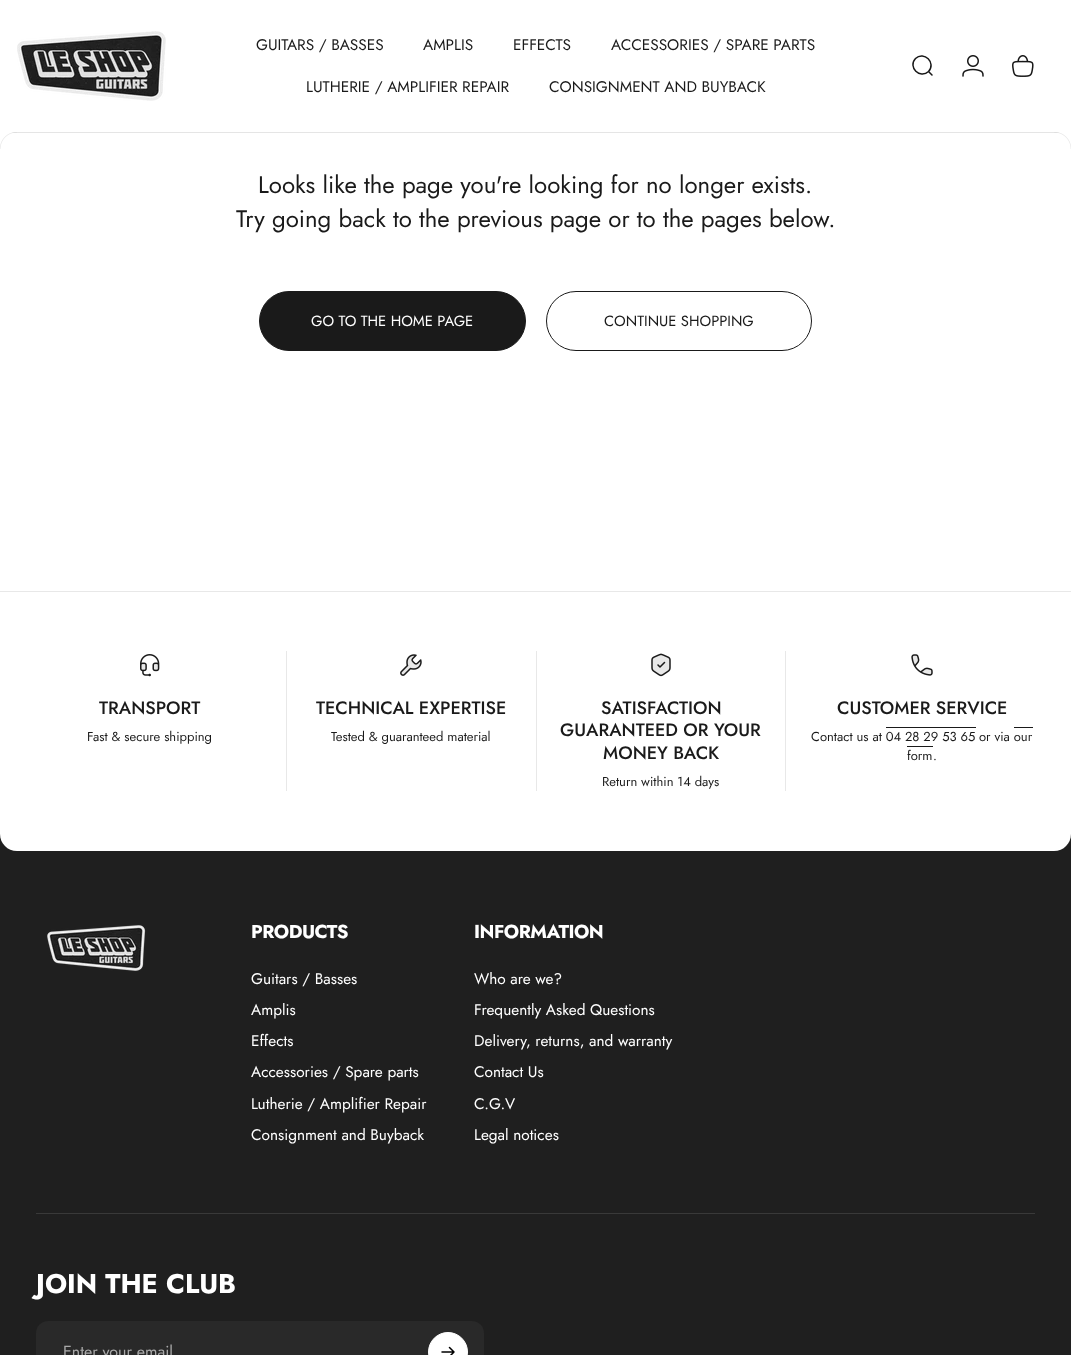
<svg xmlns="http://www.w3.org/2000/svg" width="1071" height="1355" viewBox="0 0 1071 1355">
  <rect width="100%" height="100%" fill="#fff"/>
  <image x="17" y="31" width="149" height="70" href="img/1.png"/>
  <path d="M932 75L928.5 71.5M928.5 71.5C936.5 63 924 50.5 915.5 58.5C907.5 67 920 79.5 928.5 71.5Z" fill="none" stroke="#171717" stroke-width="1.5" stroke-linecap="round"/>
  <image x="962" y="55" width="22" height="22" href="img/2.png"/>
  <image x="1012" y="55" width="22" height="22" href="img/3.png"/>
  <path d="M11 132h1049v1H11z" fill="#e5e5e5"/>
  <image x="0" y="132" width="17" height="17" href="img/4.png"/>
  <image x="1054" y="132" width="17" height="17" href="img/5.png"/>
  <rect x="259.5" y="291.5" width="266" height="59" rx="29.5" fill="#1a1a1a" stroke="#1a1a1a"/>
  <rect x="546.5" y="291.5" width="265" height="59" rx="29.5" fill="none" stroke="#1a1a1a"/>
  <path d="M0 834h1071v521H0z" fill="#1f1f1f"/>
  <path d="M0 591H1071V834C1071 843.5 1063.5 851 1054 851H17C7.5 851 0 843.5 0 834Z" fill="#fff"/>
  <path d="M0 591h1071v1H0z" fill="#e8e8e8"/>
  <image x="140" y="654" width="20" height="23" href="img/6.png"/>
  <path d="M286 651h1v140H286z" fill="#e8e8e8"/>
  <image x="400" y="654" width="22" height="22" href="img/7.png"/>
  <path d="M536 651h1v140H536z" fill="#e8e8e8"/>
  <image x="651" y="653" width="20" height="24" href="img/8.png"/>
  <path d="M785 651h1v140H785z" fill="#e8e8e8"/>
  <image x="911" y="654" width="22" height="22" href="img/9.png"/>
  <path d="M886 727h90v1H886z" fill="#1a1a1a"/>
  <path d="M1014 727h19v1H1014z" fill="#1a1a1a"/>
  <path d="M907 746h26v1H907z" fill="#1a1a1a"/>
  <image x="47" y="925" width="99" height="46" href="img/10.png"/>
  <path d="M36 1213h999v1H36z" fill="#393939"/>
  <rect x="36" y="1321" width="448" height="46" rx="12" fill="#292929"/>
  <circle cx="448" cy="1352" r="19.5" fill="#fff" stroke="#fff"/>
  <path d="M442 1352H454M454 1352L449.5 1347.5M454 1352L449.5 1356.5" fill="none" stroke="#000" stroke-width="1.5" stroke-linecap="round" stroke-linejoin="round"/>
  <g font-family="Jost" font-size="15.4" fill="#1a1a1a">
    <text x="256" y="50">GUITARS / BASSES</text>
    <text x="423" y="50">AMPLIS</text>
    <text x="513" y="50">EFFECTS</text>
    <text x="611" y="50">ACCESSORIES / SPARE PARTS</text>
    <text x="306" y="92">LUTHERIE / AMPLIFIER REPAIR</text>
    <text x="549" y="92">CONSIGNMENT AND BUYBACK</text>
  </g>
  <g font-family="Jost" font-size="24" fill="#1a1a1a">
    <text x="258" y="193">Looks like the page you're looking for no longer exists.</text>
    <text x="236" y="227">Try going back to the previous page or to the pages below.</text>
  </g>
  <text x="311" y="326" font-family="Jost" font-size="14.75" fill="#fff">GO TO THE HOME PAGE</text>
  <text x="604" y="326" font-family="Jost" font-size="14.75" fill="#1a1a1a">CONTINUE SHOPPING</text>
  <text x="99" y="714" font-family="Jost" font-size="18" font-weight="500" fill="#1a1a1a">TRANSPORT</text>
  <text x="87" y="741" font-family="Jost" font-size="13" fill="#1a1a1a">Fast &amp; secure shipping</text>
  <text x="316" y="714" font-family="Jost" font-size="18" font-weight="500" fill="#1a1a1a">TECHNICAL EXPERTISE</text>
  <text x="331" y="741" font-family="Jost" font-size="13" fill="#1a1a1a">Tested &amp; guaranteed material</text>
  <g font-family="Jost" font-size="18" font-weight="500" fill="#1a1a1a">
    <text x="601" y="714">SATISFACTION</text>
    <text x="560" y="736">GUARANTEED OR YOUR</text>
    <text x="603" y="759">MONEY BACK</text>
  </g>
  <text x="602" y="786" font-family="Jost" font-size="13" fill="#1a1a1a">Return within 14 days</text>
  <text x="837" y="714" font-family="Jost" font-size="18" font-weight="500" fill="#1a1a1a">CUSTOMER SERVICE</text>
  <g font-family="Jost" font-size="13" fill="#1a1a1a">
    <text x="811" y="741">Contact us at 04 28 29 53 65</text>
    <text x="979" y="741">or via our</text>
    <text x="907" y="760">form</text>
    <text x="933" y="760">.</text>
  </g>
  <text x="251" y="938" font-family="Jost" font-size="18.75" font-weight="bold" letter-spacing="-0.5" fill="#fff">PRODUCTS</text>
  <g font-family="Jost" font-size="15.4" fill="#fff">
    <text x="251" y="984">Guitars / Basses</text>
    <text x="251" y="1015">Amplis</text>
    <text x="251" y="1046">Effects</text>
    <text x="251" y="1077">Accessories / Spare parts</text>
    <text x="251" y="1109">Lutherie / Amplifier Repair</text>
    <text x="251" y="1140">Consignment and Buyback</text>
  </g>
  <text x="474" y="938" font-family="Jost" font-size="18.75" font-weight="bold" letter-spacing="-0.5" fill="#fff">INFORMATION</text>
  <g font-family="Jost" font-size="15.4" fill="#fff">
    <text x="474" y="984">Who are we?</text>
    <text x="474" y="1015">Frequently Asked Questions</text>
    <text x="474" y="1046">Delivery, returns, and warranty</text>
    <text x="474" y="1077">Contact Us</text>
    <text x="474" y="1109">C.G.V</text>
    <text x="474" y="1140">Legal notices</text>
  </g>
  <text x="36" y="1293" font-family="Jost" font-size="27" font-weight="bold" fill="#fff">JOIN THE CLUB</text>
  <text x="63" y="1357" font-family="Jost" font-size="16" fill="#a9a9a9">Enter your email</text>
</svg>
